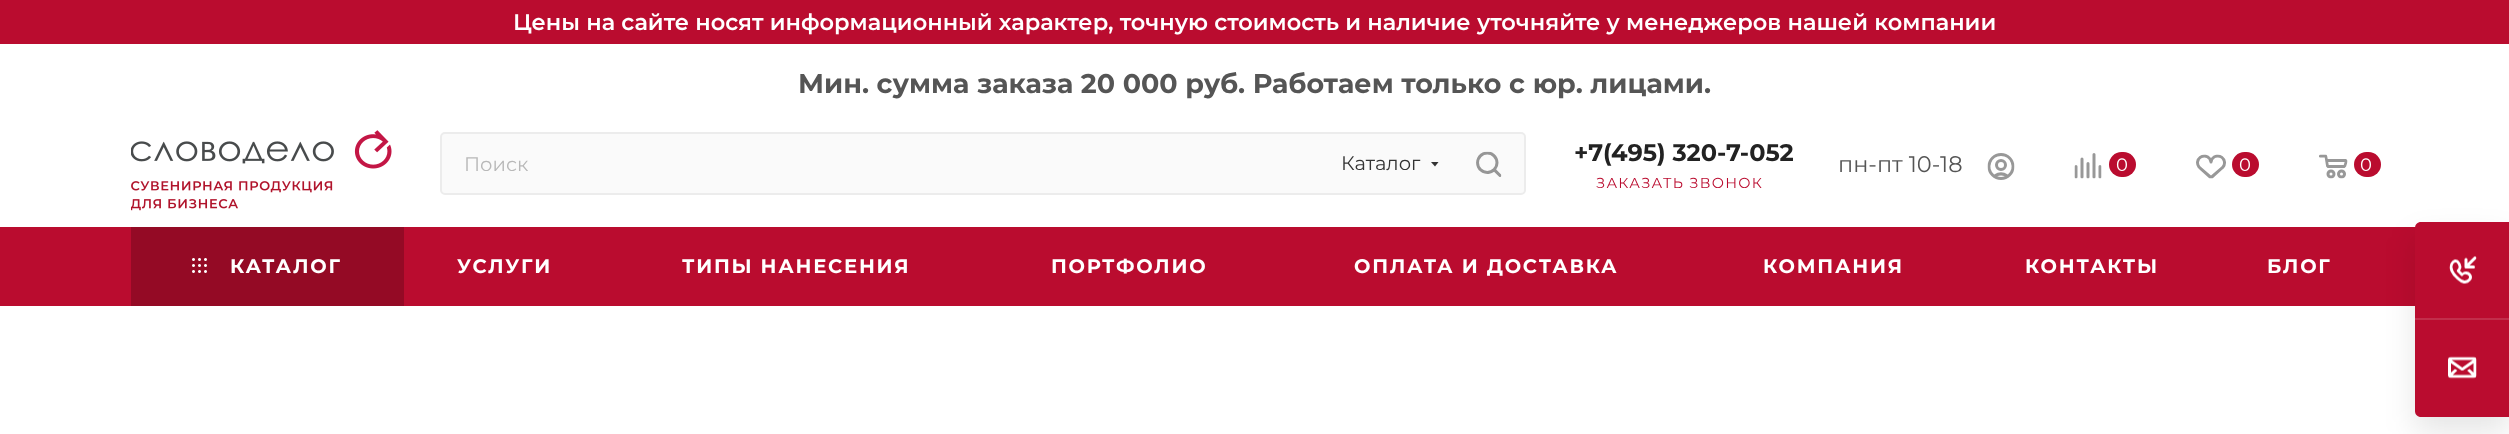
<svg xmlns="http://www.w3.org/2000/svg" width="2509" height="434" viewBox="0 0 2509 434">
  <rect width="100%" height="100%" fill="#fff"/>
  <path d="M0 0h2509v44H0z" fill="#ba0c2f"/>
  <image x="131" y="130" width="261" height="81" href="img/1.png"/>
  <rect x="441" y="133" width="1084" height="61" rx="4" fill="#fafafa" stroke="#ececec" stroke-width="2"/>
  <path d="M1431 162H1438.5L1435 166.5Z" fill="#333" fill-rule="evenodd"/>
  <image x="1476" y="151" width="26" height="26" href="img/2.png"/>
  <image x="1987" y="153" width="28" height="27" href="img/3.png"/>
  <image x="2074" y="153" width="28" height="26" href="img/4.png"/>
  <rect x="2109" y="152" width="27" height="25" rx="12.5" fill="#ba0c2f"/>
  <image x="2196" y="154" width="30" height="25" href="img/5.png"/>
  <rect x="2232" y="152" width="27" height="25" rx="12.5" fill="#ba0c2f"/>
  <image x="2319" y="154" width="29" height="25" href="img/6.png"/>
  <rect x="2354" y="152" width="27" height="25" rx="12.5" fill="#ba0c2f"/>
  <path d="M0 227h2416v79H0z" fill="#ba0c2f"/>
  <path d="M131 227h273v79H131z" fill="#940a25"/>
  <image x="192" y="258" width="15" height="15" href="img/7.png"/>
  <rect x="2415" y="237" width="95" height="195" rx="6" fill="#0000001a" filter="blur(15px)"/>
  <path d="M2421 222H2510V417H2421C2417.5 417 2415 414.5 2415 411V228C2415 224.5 2417.5 222 2421 222Z" fill="#ba0c2f"/>
  <path d="M2415 318h94v2H2415z" fill="#c22e4b"/>
  <image x="2449" y="256" width="28" height="28" href="img/8.png"/>
  <image x="2448" y="356" width="29" height="23" href="img/9.png"/>
  <text x="513" y="30" font-family="Montserrat" font-size="22.5" font-weight="600" fill="#fff">Цены на сайте носят информационный характер, точную стоимость и наличие уточняйте у менеджеров нашей компании</text>
  <text x="798" y="93" font-family="Montserrat" font-size="27" font-weight="bold" fill="#555">Мин. сумма заказа 20 000 руб. Работаем только с юр. лицами.</text>
  <text x="464" y="171" font-family="Montserrat" font-size="19.5" fill="#b8b8b8">Поиск</text>
  <text x="1341" y="170" font-family="Montserrat" font-size="19.5" fill="#333">Каталог</text>
  <text x="1574" y="161" font-family="Montserrat" font-size="24" font-weight="bold" fill="#222">+7(495) 320-7-052</text>
  <text x="1596" y="188" font-family="Montserrat" font-size="14.4" letter-spacing="1.25" fill="#ba0c2f">ЗАКАЗАТЬ ЗВОНОК</text>
  <text x="1838" y="172" font-family="Montserrat" font-size="22.5" fill="#555">пн-пт 10-18</text>
  <g font-family="Montserrat" font-size="18" fill="#fff">
    <text x="2116" y="171">0</text>
    <text x="2239" y="171">0</text>
    <text x="2360" y="171">0</text>
  </g>
  <g font-family="Montserrat" font-size="19.5" font-weight="bold" letter-spacing="1.75" fill="#fff">
    <text x="230" y="273">КАТАЛОГ</text>
    <text x="457" y="273">УСЛУГИ</text>
    <text x="682" y="273">ТИПЫ НАНЕСЕНИЯ</text>
    <text x="1051" y="273">ПОРТФОЛИО</text>
    <text x="1354" y="273">ОПЛАТА И ДОСТАВКА</text>
    <text x="1763" y="273">КОМПАНИЯ</text>
    <text x="2025" y="273">КОНТАКТЫ</text>
    <text x="2267" y="273">БЛОГ</text>
  </g>
</svg>
